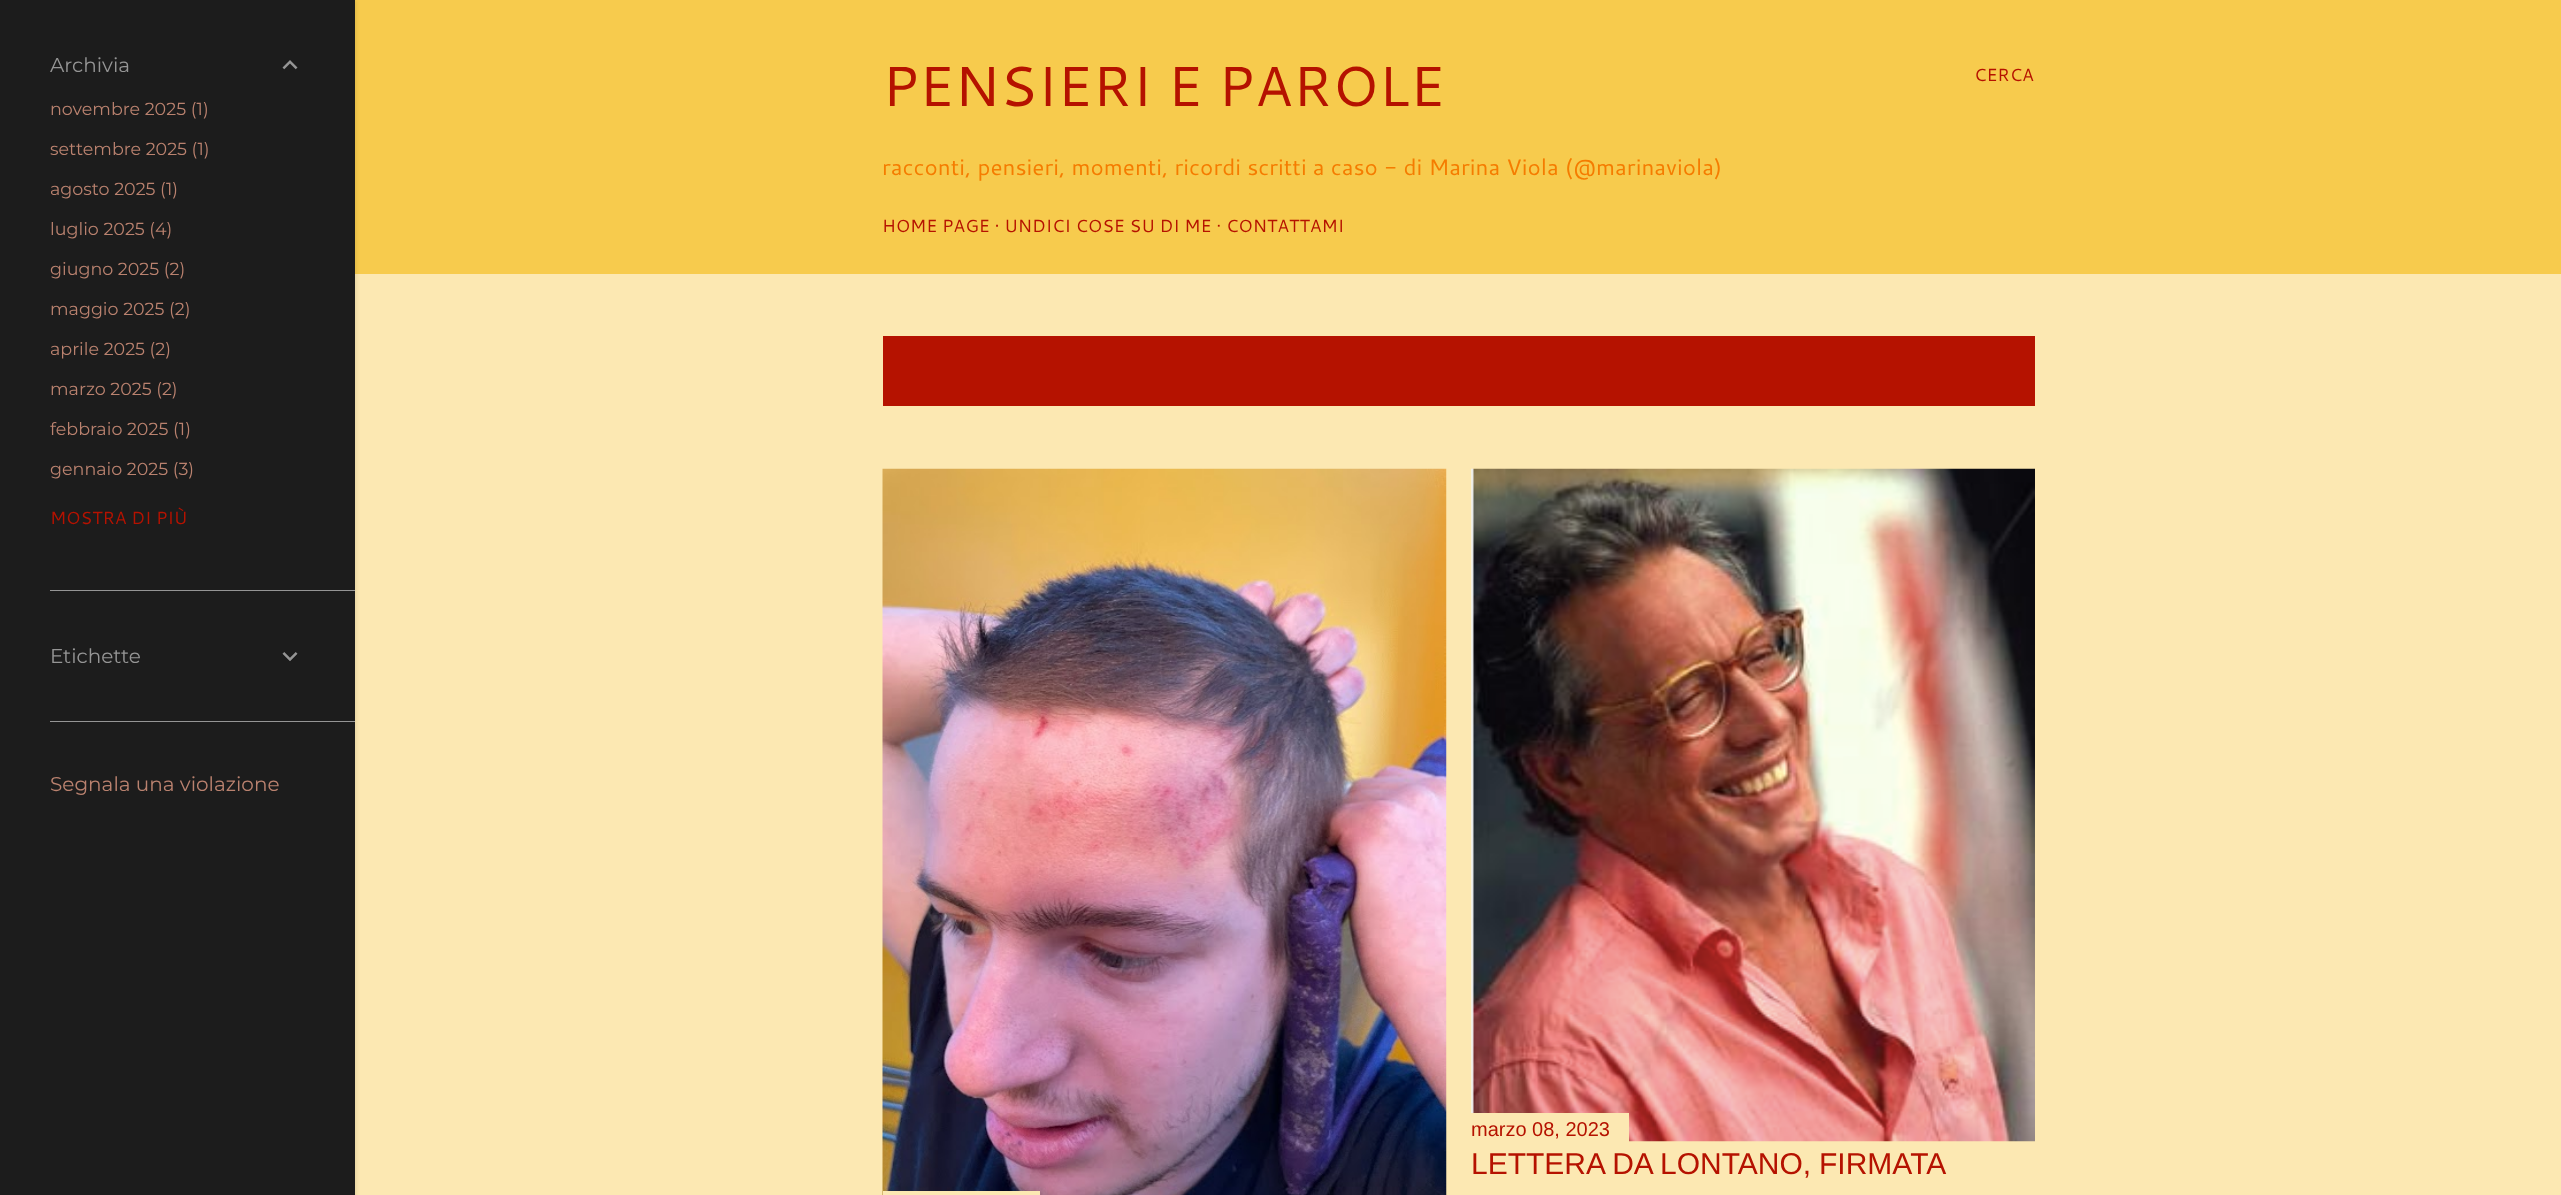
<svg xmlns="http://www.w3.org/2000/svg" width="2561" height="1195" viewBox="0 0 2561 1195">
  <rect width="100%" height="100%" fill="#fce8b2"/>
  <path d="M355 0h2206v274H355z" fill="#f7cb4d"/>
  <path d="M1 0h355v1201H1z" fill="#0000001a" filter="blur(2px)"/>
  <path d="M0 0h355v1195H0z" fill="#1c1c1c"/>
  <image x="282" y="60" width="16" height="10" href="img/1.png"/>
  <path d="M50 590h305v1H50z" fill="#959595"/>
  <image x="282" y="652" width="16" height="9" href="img/2.png"/>
  <path d="M50 721h305v1H50z" fill="#959595"/>
  <path d="M883 336h1152v70H883z" fill="#b51200"/>
  <image x="882" y="468" width="565" height="727" href="img/3.png"/>
  <path d="M883 1191h157v4H883z" fill="#fce8b2"/>
  <image x="1471" y="468" width="564" height="674" href="img/4.png"/>
  <path d="M1471 1113h158v29H1471z" fill="#fce8b2"/>
  <text x="50" y="72" font-family="Montserrat" font-size="20" font-weight="100" fill="#959595">Archivia</text>
  <g font-family="Montserrat" font-size="17.5" font-weight="100" fill="#ba826f">
    <text x="50" y="115">novembre 2025 (1)</text>
    <text x="50" y="155">settembre 2025 (1)</text>
    <text x="50" y="195">agosto 2025 (1)</text>
    <text x="50" y="235">luglio 2025 (</text>
    <text x="155" y="235">4)</text>
    <text x="50" y="275">giugno 2025 (2)</text>
    <text x="50" y="315">maggio 2025 (2)</text>
    <text x="50" y="355">aprile 2025 (2)</text>
    <text x="50" y="395">marzo 2025 (2)</text>
    <text x="50" y="435">febbraio 2025 (1)</text>
    <text x="50" y="475">gennaio 2025 (3)</text>
  </g>
  <text x="50" y="524" font-family="Cantarell" font-size="17.5" fill="#b51200">MOSTRA DI PIÙ</text>
  <text x="50" y="663" font-family="Montserrat" font-size="20" font-weight="100" fill="#959595">Etichette</text>
  <text x="50" y="791" font-family="Montserrat" font-size="20" font-weight="100" fill="#ba826f">Segnala una violazione</text>
  <text x="882" y="106" font-family="Cantarell" font-size="56.25" fill="#b51200">PENSIERI E PAROLE</text>
  <text x="882" y="175" font-family="Cantarell" font-size="22.5" fill="#f57c00">racconti, pensieri, momenti, ricordi scritti a caso - di Marina Viola (@marinaviola)</text>
  <g font-family="Cantarell" font-size="17.5" fill="#b51200">
    <text x="882" y="232">HOME PAGE · UNDICI COSE SU DI ME · CONTATTAMI</text>
    <text x="1974" y="81">CERCA</text>
  </g>
  <text x="1471" y="1136" font-family="Liberation Sans" font-size="20" fill="#b51200">marzo 08, 2023</text>
  <text x="1471" y="1174" word-spacing="-0.5" font-family="Liberation Sans" font-size="30" fill="#b51200">LETTERA DA LONTANO, FIRMATA</text>
</svg>
